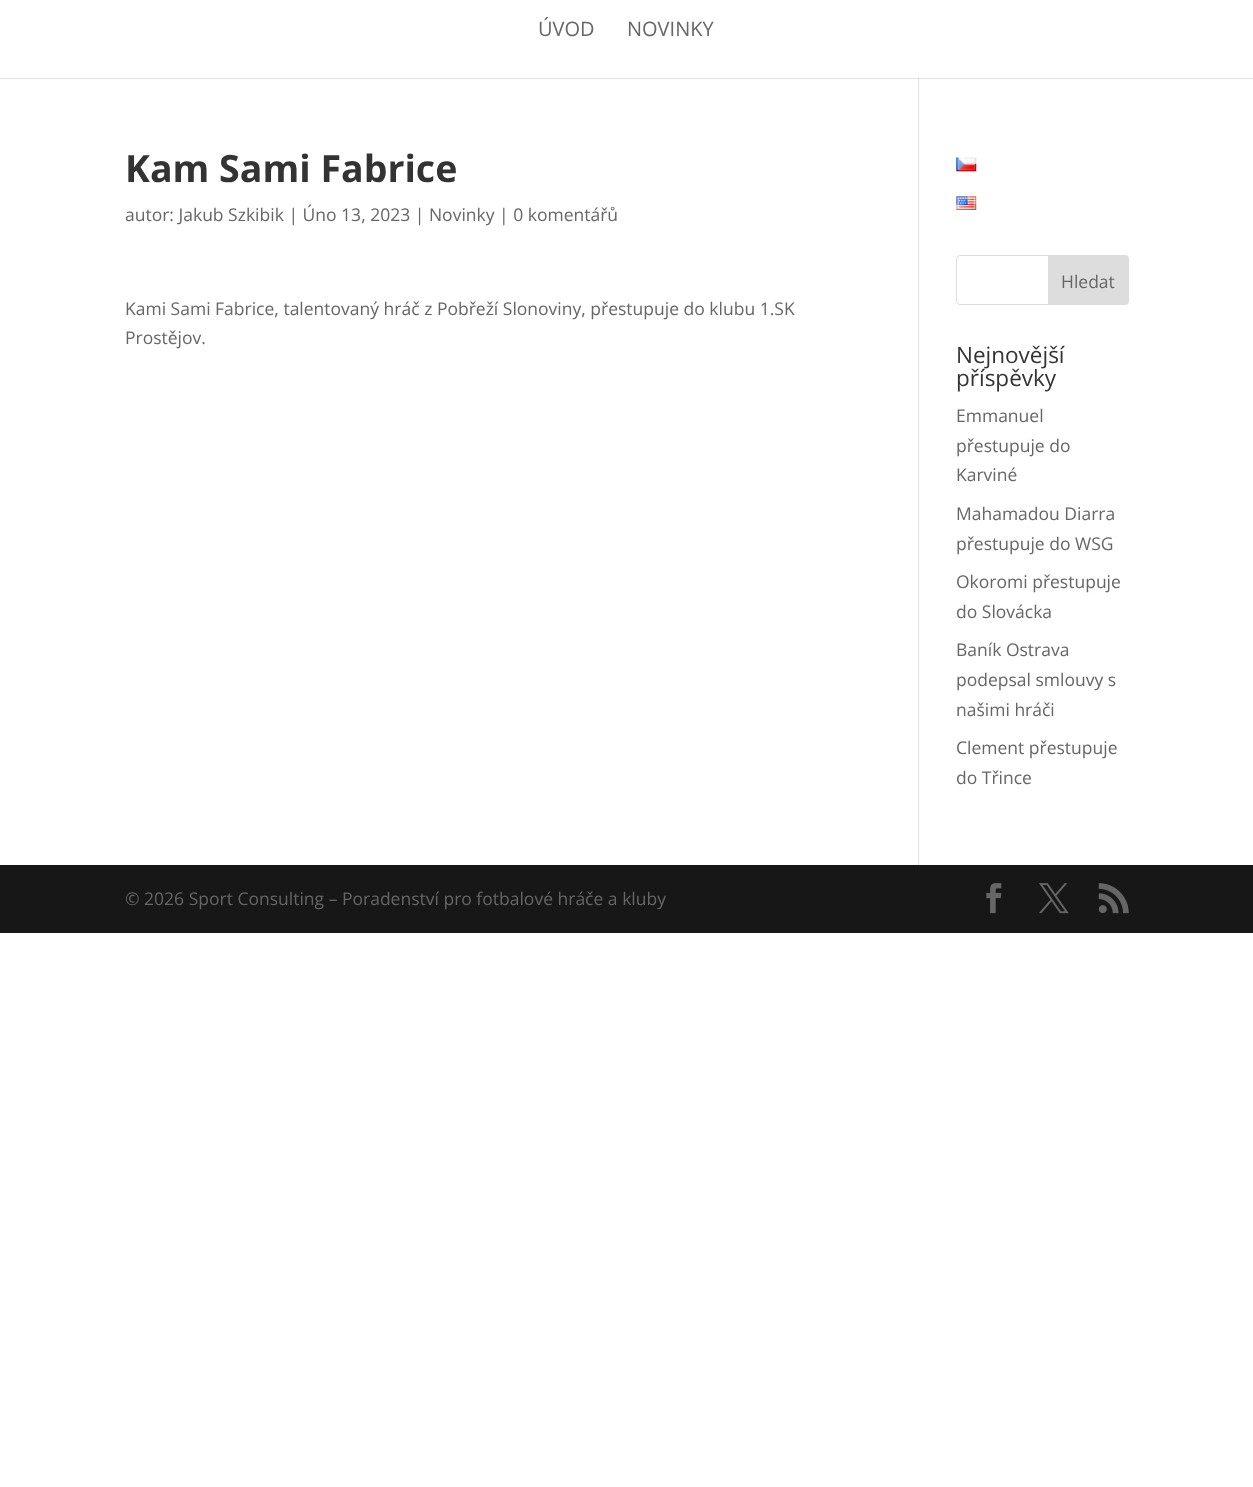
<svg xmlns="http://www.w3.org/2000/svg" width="1253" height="1487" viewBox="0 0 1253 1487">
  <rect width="100%" height="100%" fill="#fff"/>
  <path d="M918 78h1v787H918z" fill="#e2e2e2"/>
  <path d="M0 78V79H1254V1V78Z" fill="#0000001a"/>
  <image x="956" y="157" width="21" height="15" href="img/1.png"/>
  <image x="956" y="196" width="21" height="14" href="img/2.png"/>
  <rect x="956.5" y="255.5" width="172" height="49" rx="3.5" fill="none" stroke="#ddd"/>
  <path d="M1048.5 255.5H1125C1127 255.5 1128.5 257 1128.5 259V301C1128.5 303 1127 304.5 1125 304.5H1048.5Z" fill="#ddd" stroke="#ddd"/>
  <path d="M0 865h1253v68H0z" fill="#171717"/>
  <image x="986" y="883" width="16" height="31" href="img/3.png"/>
  <image x="1039" y="883" width="30" height="31" href="img/4.png"/>
  <image x="1098" y="883" width="31" height="31" href="img/5.png"/>
  <g font-family="Open Sans" font-size="20" fill="#666">
    <text x="538" y="36">ÚVOD</text>
    <text x="627" y="36">NOVINKY</text>
  </g>
  <text x="125" y="182" font-family="Open Sans" font-size="37.5" font-weight="bold" fill="#333">Kam Sami Fabrice</text>
  <g font-family="Open Sans" font-size="17.5" fill="#666">
    <text x="125" y="221">autor: Jakub Szkibik | Úno 13, 2023 | Novinky | 0 komentářů</text>
    <text x="125" y="315">Kami Sami Fabrice, talentovaný hráč z Pobřeží Slonoviny, přestupuje do klubu 1.SK</text>
    <text x="125" y="344">Prostějov.</text>
    <text x="1061" y="288">Hledat</text>
  </g>
  <g font-family="Open Sans" font-size="22.5" fill="#333">
    <text x="956" y="363">Nejnovější</text>
    <text x="956" y="386">příspěvky</text>
  </g>
  <g font-family="Open Sans" font-size="17.5" fill="#666">
    <text x="956" y="422">Emmanuel</text>
    <text x="956" y="452">přestupuje do</text>
    <text x="956" y="481">Karviné</text>
    <text x="956" y="520">Mahamadou Diarra</text>
    <text x="956" y="550">přestupuje do WSG</text>
    <text x="956" y="588">Okoromi přestupuje</text>
    <text x="956" y="618">do Slovácka</text>
    <text x="956" y="656">Baník Ostrava</text>
    <text x="956" y="686">podepsal smlouvy s</text>
    <text x="956" y="716">našimi hráči</text>
    <text x="956" y="754">Clement přestupuje</text>
    <text x="956" y="784">do Třince</text>
    <text x="125" y="905">© 2026 Sport Consulting – Poradenství pro fotbalové hráče a kluby</text>
  </g>
</svg>
